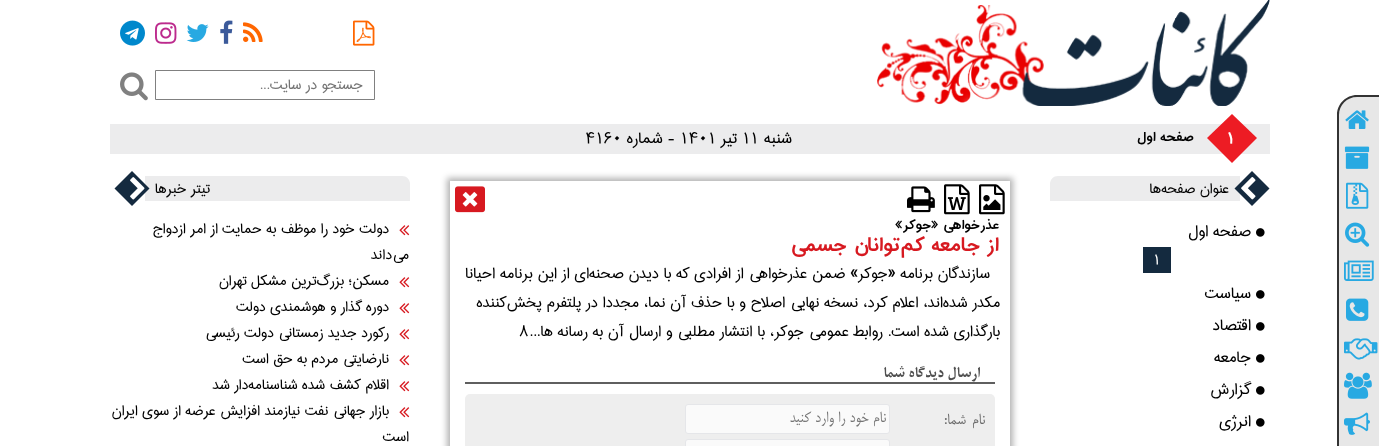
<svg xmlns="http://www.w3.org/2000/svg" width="1379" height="446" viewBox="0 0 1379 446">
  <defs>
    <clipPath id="clip1"><path d="M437 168H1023V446H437ZM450 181H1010V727H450Z" clip-rule="evenodd"/></clipPath>
  </defs>
  <rect width="100%" height="100%" fill="#fff"/>
  <path d="M1357 95H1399V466H1357C1346 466 1337 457 1337 446V115C1337 104 1346 95 1357 95Z" fill="#e7e7e7"/>
  <path d="M1357 95H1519V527H1357C1346 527 1337 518 1337 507V115C1337 104 1346 95 1357 95ZM1357 97H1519V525H1357C1347 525 1339 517 1339 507V115C1339 105 1347 97 1357 97Z" fill="#333" fill-rule="evenodd"/>
  <image x="1345" y="110" width="24" height="19" href="img/1.png"/>
  <image x="1344" y="146" width="26" height="23" href="img/2.png"/>
  <image x="1346" y="182" width="23" height="27" href="img/3.png"/>
  <image x="1345" y="222" width="25" height="25" href="img/4.png"/>
  <image x="1344" y="260" width="30" height="21" href="img/5.png"/>
  <image x="1346" y="298" width="23" height="23" href="img/6.png"/>
  <image x="1344" y="338" width="34" height="22" href="img/7.png"/>
  <image x="1344" y="372" width="28" height="27" href="img/8.png"/>
  <image x="1344" y="412" width="26" height="23" href="img/9.png"/>
  <image x="877" y="0" width="393" height="106" href="img/10.png"/>
  <image x="353" y="20" width="22" height="26" href="img/11.png"/>
  <image x="243" y="22" width="20" height="20" href="img/12.png"/>
  <image x="220" y="20" width="13" height="24" href="img/13.png"/>
  <image x="186" y="24" width="23" height="18" href="img/14.png"/>
  <image x="155" y="22" width="22" height="22" href="img/15.png"/>
  <image x="120" y="20" width="25" height="26" href="img/16.png"/>
  <path d="M155.5 70.5h219v29H155.5z" fill="none" stroke="#808080"/>
  <image x="120" y="72" width="28" height="29" href="img/17.png"/>
  <path d="M110 124h1160v30H110z" fill="#ececed"/>
  <path d="M1232 114L1257 138L1232 163L1207 138Z" fill="#ed1c24"/>
  <path d="M1058 176H1240V201H1050V184C1050 179.5 1053.5 176 1058 176Z" fill="#ececed"/>
  <path d="M1252 171L1269.5 188.5L1252 206L1234.5 188.5Z" fill="#142a3f"/>
  <image x="1241" y="177" width="15" height="23" href="img/18.png"/>
  <image x="1256" y="228" width="9" height="9" href="img/19.png"/>
  <path d="M1143 247h28v26H1143z" fill="#142a3f"/>
  <image x="1256" y="290" width="9" height="9" href="img/19.png"/>
  <image x="1256" y="322" width="9" height="9" href="img/19.png"/>
  <image x="1256" y="354" width="9" height="9" href="img/19.png"/>
  <image x="1256" y="386" width="9" height="9" href="img/19.png"/>
  <image x="1256" y="418" width="9" height="9" href="img/19.png"/>
  <g clip-path="url(#clip1)">
    <path d="M447 178h566v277H447z" fill="#0000004d" filter="blur(3px)"/>
  </g>
  <image x="979" y="184" width="26" height="31" href="img/20.png"/>
  <image x="944" y="184" width="26" height="31" href="img/21.png"/>
  <image x="907" y="186" width="28" height="27" href="img/22.png"/>
  <image x="455" y="186" width="30" height="27" href="img/23.png"/>
  <path d="M465 382h530v2H465z" fill="#5f5f5f"/>
  <rect x="465" y="394" width="530" height="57" rx="5" fill="#eee"/>
  <rect x="685.5" y="404.5" width="204" height="29" rx="2.5" fill="#fafafa" stroke="#e5e6e9"/>
  <rect x="685.5" y="439.5" width="204" height="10" rx="2.5" fill="#fafafa" stroke="#e5e6e9"/>
  <path d="M145 176H402C406.5 176 410 179.5 410 184V201H145Z" fill="#ececed"/>
  <path d="M132 171L149.5 188.5L132 206L114.5 188.5Z" fill="#142a3f"/>
  <image x="130" y="177" width="15" height="23" href="img/24.png"/>
  <image x="399" y="225" width="11" height="11" href="img/25.png"/>
  <image x="399" y="277" width="11" height="11" href="img/25.png"/>
  <image x="399" y="303" width="11" height="11" href="img/25.png"/>
  <image x="399" y="329" width="11" height="11" href="img/25.png"/>
  <image x="399" y="355" width="11" height="11" href="img/25.png"/>
  <image x="399" y="381" width="11" height="11" href="img/25.png"/>
  <image x="399" y="407" width="11" height="11" href="img/25.png"/>
  <text x="363" y="89" font-family="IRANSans" font-size="18" direction="rtl" fill="#757575">جستجو در سایت...</text>
  <text x="1227" y="143" font-family="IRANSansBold" font-size="20" font-weight="bold" fill="#fff">1</text>
  <text x="1194" y="141" font-family="IRANSansBold" font-size="16" font-weight="bold" direction="rtl" fill="#000">صفحه اول</text>
  <text x="792" y="143" font-family="IRANSans" font-size="20" direction="rtl" fill="#000">شنبه</text>
  <text x="742" y="143" font-family="IRANSans" font-size="20" fill="#000">11</text>
  <text x="737" y="143" font-family="IRANSans" font-size="20" direction="rtl" fill="#000">تير</text>
  <text x="680" y="143" font-family="IRANSans" font-size="20" fill="#000">1401</text>
  <text x="675" y="143" font-family="IRANSans" font-size="20" direction="rtl" fill="#000">- شماره</text>
  <text x="585" y="143" font-family="IRANSans" font-size="20" fill="#000">4160</text>
  <text x="1229" y="193" font-family="IRANSans" font-size="18" direction="rtl" fill="#000">عنوان صفحه‌ها</text>
  <text x="1251" y="236" font-family="IRANSans" font-size="20" direction="rtl" fill="#000">صفحه اول</text>
  <text x="1153" y="264" font-family="IRANSans" font-size="18" fill="#fff">1</text>
  <g font-family="IRANSans" font-size="20" direction="rtl" fill="#000">
    <text x="1251" y="298">سیاست</text>
    <text x="1251" y="330">اقتصاد</text>
    <text x="1251" y="362">جامعه</text>
    <text x="1251" y="394">گزارش</text>
    <text x="1251" y="426">انرژی</text>
  </g>
  <text x="999" y="229" font-family="IRANSansBold" font-size="16" font-weight="bold" direction="rtl" fill="#000">عذرخواهی «جوکر»</text>
  <text x="999" y="251" font-family="IRANSansBold" font-size="24" font-weight="bold" direction="rtl" fill="#d71920">از جامعه کم‌توانان جسمی</text>
  <g font-family="IRANSans" font-size="19.2" direction="rtl" fill="#000">
    <text x="990" y="278">سازندگان برنامه «جوکر» ضمن عذرخواهی از افرادی که با دیدن صحنه‌ای از این برنامه احیانا</text>
    <text x="1000" y="307">مکدر شده‌اند، اعلام کرد، نسخه نهایی اصلاح و با حذف آن نما، مجددا در پلتفرم پخش‌کننده</text>
    <text x="1000" y="336">بارگذاری شده است. روابط عمومی جوکر، با انتشار مطلبی و ارسال آن به رسانه ها...</text>
  </g>
  <text x="519" y="336" font-family="IRANSans" font-size="19.2" fill="#000">8</text>
  <text x="980" y="377" font-family="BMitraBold" font-size="16" font-weight="bold" direction="rtl" fill="#4f4f4f">ارسال دیدگاه شما</text>
  <text x="985" y="424" word-spacing="2" font-family="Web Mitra" font-size="18" letter-spacing="-0.25" direction="rtl" fill="#696969">نام شما:</text>
  <text x="886" y="422" font-family="Web Mitra" font-size="18" direction="rtl" fill="#757575">نام خود را وارد کنيد</text>
  <g font-family="IRANSans" font-size="18" direction="rtl" fill="#000">
    <text x="210" y="193">تیتر خبرها</text>
    <text x="389" y="233">دولت خود را موظف به حمایت</text>
    <text x="218" y="233">از امر ازدواج</text>
    <text x="409" y="259">می‌داند</text>
    <text x="389" y="285">مسکن؛</text>
    <text x="344" y="285">بزرگ‌ترین مشکل تهران</text>
    <text x="389" y="311">دوره گذار</text>
    <text x="336" y="311">و هوشمندی دولت</text>
    <text x="389" y="337">رکورد جدید زمستانی دولت رئیسی</text>
    <text x="389" y="363">نارضايتي مردم</text>
    <text x="307" y="363">به حق است</text>
    <text x="389" y="389">اقلام کشف شده شناسنامه‌دار شد</text>
    <text x="389" y="415">بازار جهاني نفت نيازمند افزايش عرضه از سوي ايران</text>
    <text x="409" y="441">است</text>
  </g>
</svg>
